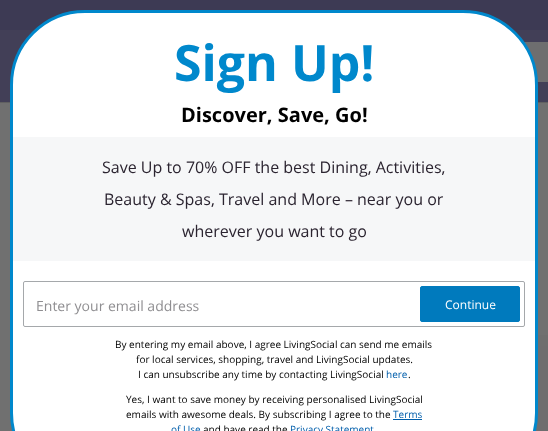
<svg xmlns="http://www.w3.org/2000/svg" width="548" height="431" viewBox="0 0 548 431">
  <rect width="100%" height="100%" fill="#707070"/>
  <path d="M0 30h548v72H0z" fill="#423f57"/>
  <path d="M0 0h548v30H0z" fill="#3d3a54"/>
  <path d="M524 42h24v40H524z" fill="#6e6e6f"/>
  <path d="M0 102h548v1H0z" fill="#606061"/>
  <image x="535" y="335" width="13" height="96" href="img/1.png"/>
  <rect x="11.5" y="11.5" width="525" height="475" rx="73.5" fill="#fff" stroke="#08c" stroke-width="3"/>
  <path d="M13 137h522v124H13z" fill="#f6f7f8"/>
  <rect x="23.5" y="281.5" width="501" height="45" rx="1.5" fill="none" stroke="#a5a8ab"/>
  <rect x="420.5" y="286.5" width="99" height="35" rx="1.5" fill="#007abd" stroke="#007abd"/>
  <path d="M393 419h29v1H393z" fill="#005eab"/>
  <text x="174" y="81" font-family="Open Sans" font-size="50" font-weight="bold" fill="#08c">Sign Up!</text>
  <text x="181" y="122" font-family="Open Sans" font-size="20" font-weight="bold" fill="#000">Discover, Save, Go!</text>
  <g font-family="Open Sans" font-size="16" fill="#2b2430">
    <text x="102" y="173">Save Up to 70% OFF the best Dining, Activities,</text>
    <text x="104" y="205">Beauty &amp; Spas, Travel and More – near you or</text>
    <text x="182" y="237">wherever you want to go</text>
  </g>
  <text x="36" y="311" font-family="Open Sans" font-size="14" fill="#8f8e91">Enter your email address</text>
  <text x="445" y="309" font-family="Open Sans" font-size="12" fill="#fff">Continue</text>
  <g font-family="Open Sans" font-size="10" fill="#000">
    <text x="115" y="348">By entering my email above, I agree LivingSocial can send me emails</text>
    <text x="136" y="363">for local services, shopping, travel and LivingSocial updates.</text>
    <text x="138" y="378">I can unsubscribe any time by contacting LivingSocial</text>
  </g>
  <text x="386" y="378" font-family="Open Sans" font-size="10" fill="#005eab">here</text>
  <g font-family="Open Sans" font-size="10" fill="#000">
    <text x="408" y="378">.</text>
    <text x="126" y="403">Yes, I want to save money by receiving personalised LivingSocial</text>
    <text x="126" y="418">emails with awesome deals. By subscribing I agree to the</text>
  </g>
  <g font-family="Open Sans" font-size="10" fill="#005eab">
    <text x="393" y="418">Terms</text>
    <text x="171" y="433">of Use</text>
  </g>
  <text x="203" y="433" font-family="Open Sans" font-size="10" fill="#000">and have read the</text>
  <text x="290" y="433" font-family="Open Sans" font-size="10" fill="#005eab">Privacy Statement</text>
</svg>
